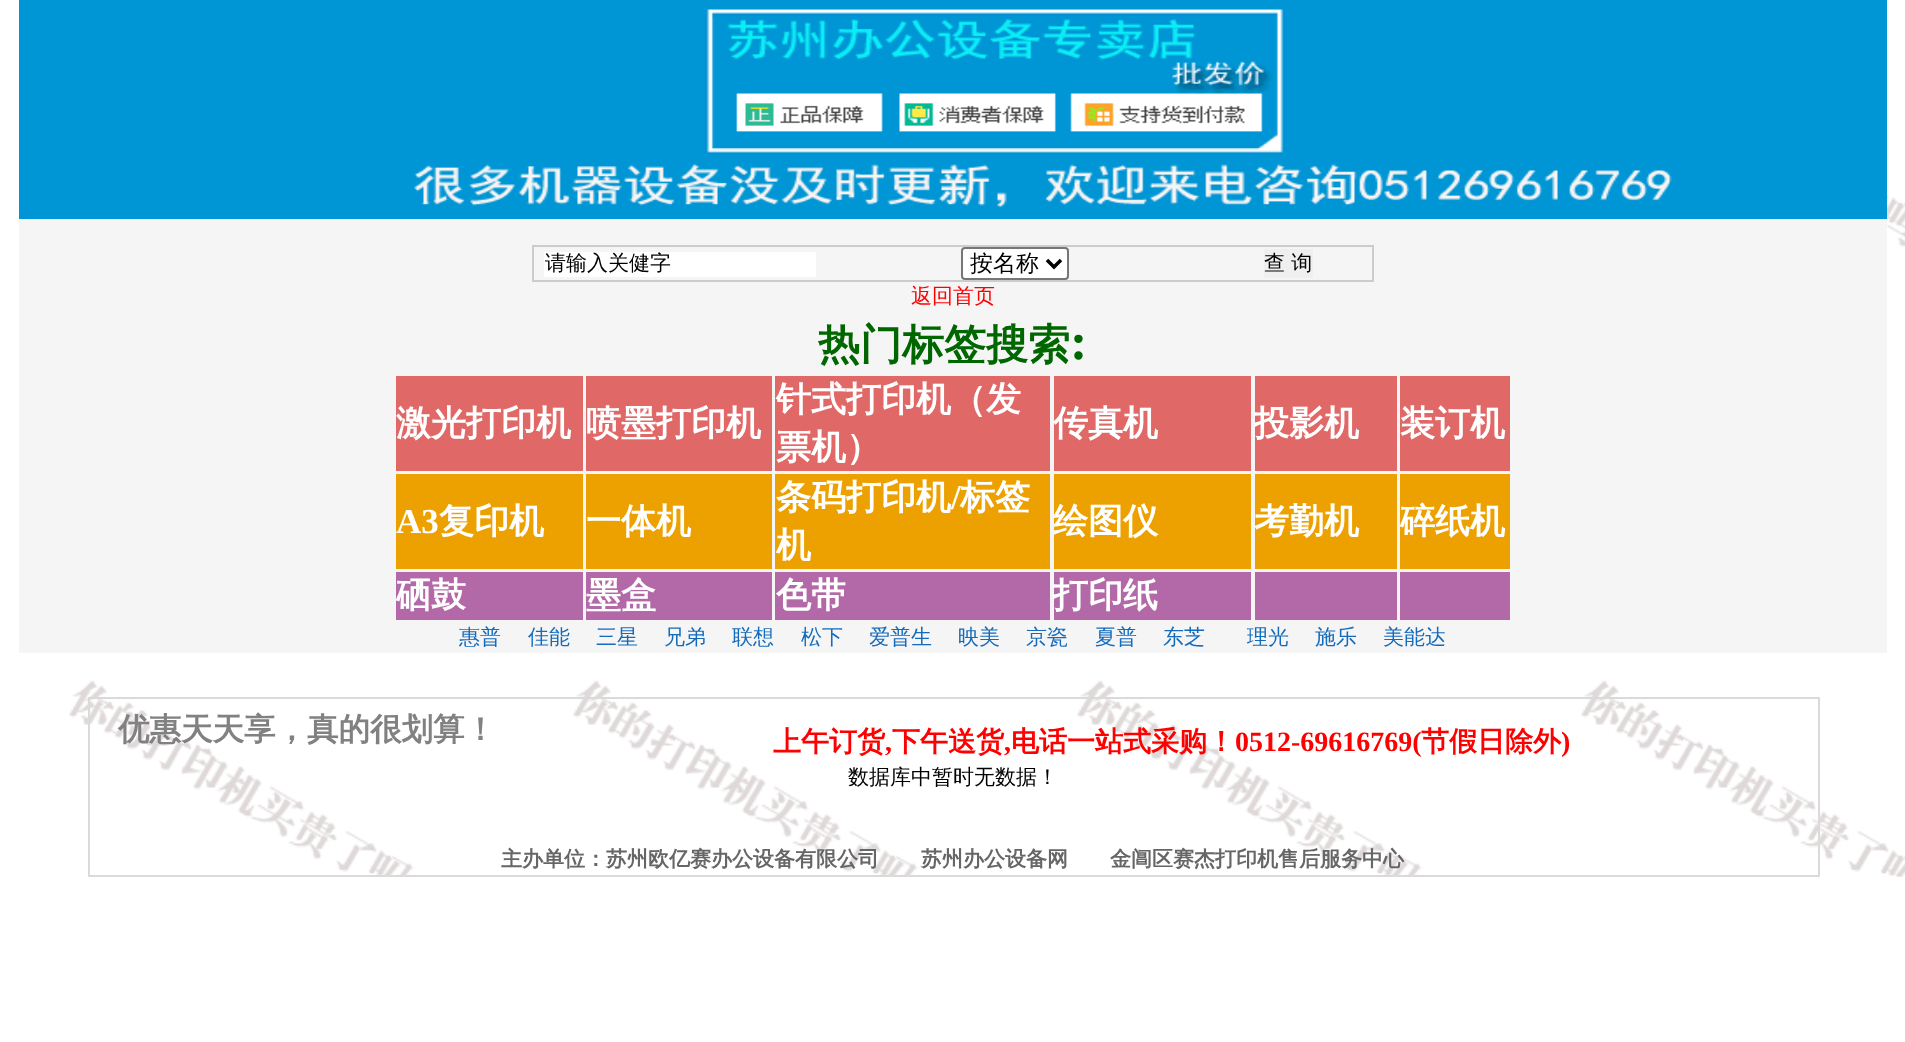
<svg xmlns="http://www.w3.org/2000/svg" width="1905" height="1042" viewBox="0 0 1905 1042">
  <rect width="100%" height="100%" fill="#fff"/>
  <image x="1887" y="193" width="18" height="55" href="img/1.png"/>
  <path d="M19 0h1868v219H19z" fill="#0096d5"/>
  <image x="414" y="9" width="1258" height="199" href="img/2.png"/>
  <path d="M19 219h1868v434H19z" fill="#f5f5f5"/>
  <path d="M532 245h842v37H532z" fill="#ccc"/>
  <path d="M534 247h838v33H534z" fill="#f5f5f5"/>
  <path d="M544 252h272v25H544z" fill="#fff"/>
  <rect x="962" y="248" width="106" height="31" rx="3" fill="#fff" stroke="#767676" stroke-width="2"/>
  <path d="M1047 260L1054 267L1061 260" fill="none" stroke="#000" stroke-width="3.5"/>
  <path d="M1264 249h49v29H1264z" fill="#efefef"/>
  <path d="M396 376h187v95H396z" fill="#e06968"/>
  <path d="M586 376h186v95H586z" fill="#e06968"/>
  <path d="M775 376h275v95H775z" fill="#e06968"/>
  <path d="M1054 376h197v95H1054z" fill="#e06968"/>
  <path d="M1255 376h142v95H1255z" fill="#e06968"/>
  <path d="M1400 376h110v95H1400z" fill="#e06968"/>
  <path d="M396 474h187v95H396z" fill="#eda100"/>
  <path d="M586 474h186v95H586z" fill="#eda100"/>
  <path d="M775 474h275v95H775z" fill="#eda100"/>
  <path d="M1054 474h197v95H1054z" fill="#eda100"/>
  <path d="M1255 474h142v95H1255z" fill="#eda100"/>
  <path d="M1400 474h110v95H1400z" fill="#eda100"/>
  <path d="M396 572h187v48H396z" fill="#b369a7"/>
  <path d="M586 572h186v48H586z" fill="#b369a7"/>
  <path d="M775 572h275v48H775z" fill="#b369a7"/>
  <path d="M1054 572h197v48H1054z" fill="#b369a7"/>
  <path d="M1255 572h142v48H1255z" fill="#b369a7"/>
  <path d="M1400 572h110v48H1400z" fill="#b369a7"/>
  <image x="69" y="680" width="1836" height="197" href="img/3.png"/>
  <path d="M89 698h1730v178H89z" fill="none" stroke="#dadada" stroke-width="2"/>
  <text x="545" y="270" font-family="WenQuanYi Zen Hei" font-size="21" font-weight="500" fill="#000">请输入关健字</text>
  <text x="970" y="271" font-family="WenQuanYi Zen Hei" font-size="23" font-weight="500" fill="#000">按名称</text>
  <text x="1264" y="270" font-family="WenQuanYi Zen Hei" font-size="21" font-weight="500" fill="#000">查 询</text>
  <text x="911" y="303" font-family="WenQuanYi Zen Hei" font-size="21" font-weight="500" fill="#f00">返回首页</text>
  <text x="818" y="359" font-family="WenQuanYi Zen Hei" font-size="42" font-weight="bold" fill="#060">热门标签搜索</text>
  <text x="1070" y="359" font-family="Liberation Serif" font-size="52" font-weight="bold" fill="#060">:</text>
  <g font-family="WenQuanYi Zen Hei" font-size="35" font-weight="bold" fill="#fff">
    <text x="396" y="435">激光打印机</text>
    <text x="586" y="435">喷墨打印机</text>
    <text x="776" y="411">针式打印机（发</text>
    <text x="776" y="459">票机）</text>
    <text x="1053" y="435">传真机</text>
    <text x="1254" y="435">投影机</text>
    <text x="1400" y="435">装订机</text>
  </g>
  <text x="396" y="533" font-family="Liberation Serif" font-size="35" font-weight="bold" fill="#fff">A3</text>
  <g font-family="WenQuanYi Zen Hei" font-size="35" font-weight="bold" fill="#fff">
    <text x="439" y="533">复印机</text>
    <text x="586" y="533">一体机</text>
    <text x="776" y="509">条码打印机</text>
  </g>
  <text x="951" y="509" font-family="Liberation Serif" font-size="35" font-weight="bold" fill="#fff">/</text>
  <g font-family="WenQuanYi Zen Hei" font-size="35" font-weight="bold" fill="#fff">
    <text x="960" y="509">标签</text>
    <text x="776" y="557">机</text>
    <text x="1053" y="533">绘图仪</text>
    <text x="1254" y="533">考勤机</text>
    <text x="1400" y="533">碎纸机</text>
    <text x="396" y="607">硒鼓</text>
    <text x="586" y="607">墨盒</text>
    <text x="776" y="607">色带</text>
    <text x="1053" y="607">打印纸</text>
  </g>
  <g font-family="WenQuanYi Zen Hei" font-size="21" font-weight="500" fill="#146bbc">
    <text x="459" y="644">惠普</text>
    <text x="528" y="644">佳能</text>
    <text x="596" y="644">三星</text>
    <text x="664" y="644">兄弟</text>
    <text x="732" y="644">联想</text>
    <text x="801" y="644">松下</text>
    <text x="869" y="644">爱普生</text>
    <text x="958" y="644">映美</text>
    <text x="1026" y="644">京瓷</text>
    <text x="1095" y="644">夏普</text>
    <text x="1163" y="644">东芝</text>
    <text x="1247" y="644">理光</text>
    <text x="1315" y="644">施乐</text>
    <text x="1383" y="644">美能达</text>
  </g>
  <text x="118" y="740" font-family="WenQuanYi Zen Hei" font-size="31.5" font-weight="bold" fill="#818181">优惠天天享，真的很划算！</text>
  <text x="773" y="751" font-family="WenQuanYi Zen Hei" font-size="28" font-weight="bold" fill="#f00">上午订货</text>
  <text x="885" y="751" font-family="Liberation Serif" font-size="28" font-weight="bold" fill="#f00">,</text>
  <text x="892" y="751" font-family="WenQuanYi Zen Hei" font-size="28" font-weight="bold" fill="#f00">下午送货</text>
  <text x="1004" y="751" font-family="Liberation Serif" font-size="28" font-weight="bold" fill="#f00">,</text>
  <text x="1011" y="751" font-family="WenQuanYi Zen Hei" font-size="28" font-weight="bold" fill="#f00">电话一站式采购！</text>
  <text x="1235" y="751" font-family="Liberation Serif" font-size="28" font-weight="bold" fill="#f00">0512-69616769(</text>
  <text x="1421" y="751" font-family="WenQuanYi Zen Hei" font-size="28" font-weight="bold" fill="#f00">节假日除外</text>
  <text x="1561" y="751" font-family="Liberation Serif" font-size="28" font-weight="bold" fill="#f00">)</text>
  <text x="848" y="784" font-family="WenQuanYi Zen Hei" font-size="21" font-weight="500" fill="#000">数据库中暂时无数据！</text>
  <text x="501" y="866" font-family="WenQuanYi Zen Hei" font-size="21" font-weight="bold" fill="#666">主办单位：苏州欧亿赛办公设备有限公司　　苏州办公设备网　　金阊区赛杰打印机售后服务中心</text>
</svg>
